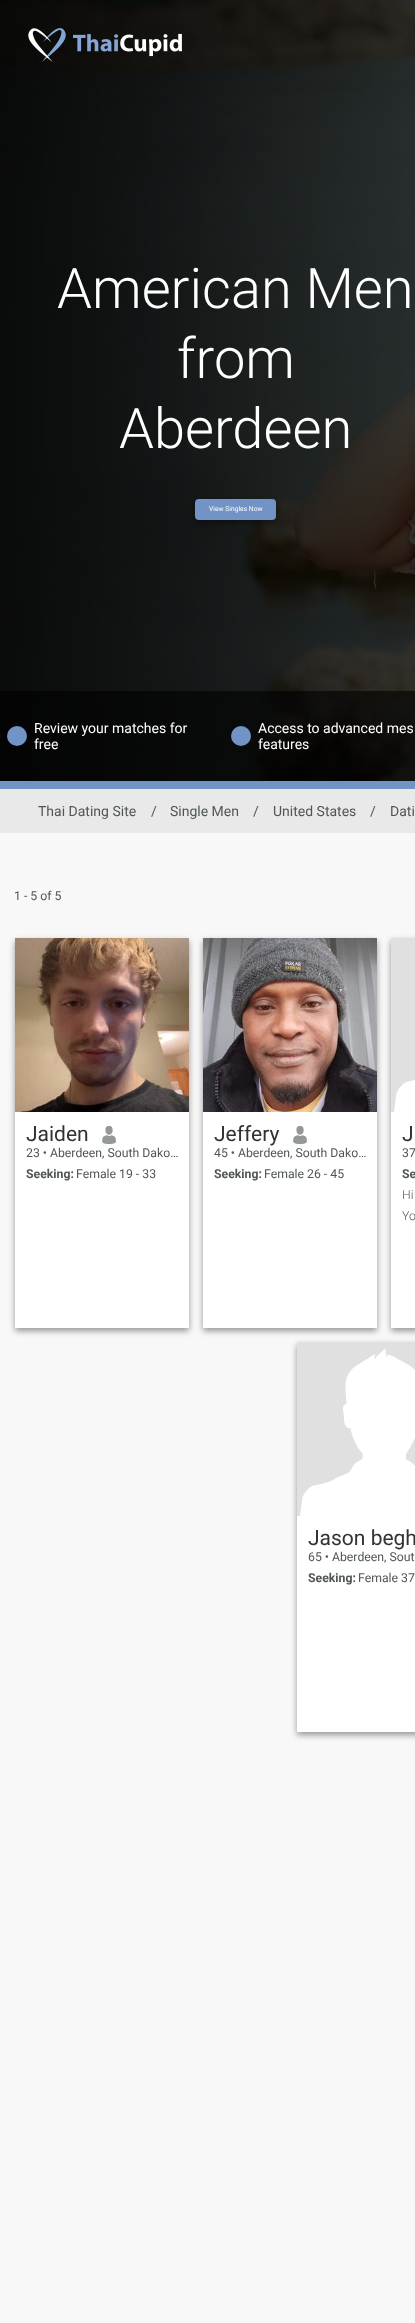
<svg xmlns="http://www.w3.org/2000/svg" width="415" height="2323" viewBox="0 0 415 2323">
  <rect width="100%" height="100%" fill="#f8f8f8"/>
  <image x="0" y="0" width="415" height="781" href="img/3.png"/>
  <image x="28" y="28" width="38" height="34" href="img/1.png"/>
  <image x="73" y="33" width="109" height="24" href="img/2.png"/>
  <rect x="195" y="502" width="81" height="21" rx="4" fill="#00000066" filter="blur(3px)"/>
  <rect x="195" y="499" width="81" height="21" rx="4" fill="#7193c5"/>
  <path d="M0 691h415v90H0z" fill="#00000099"/>
  <circle cx="17" cy="736" r="10" fill="#7193c5"/>
  <circle cx="241" cy="736" r="10" fill="#7193c5"/>
  <path d="M0 781h415v8H0z" fill="#7193c5"/>
  <path d="M0 789h415v44H0z" fill="#e9e9e9"/>
  <path d="M15 941h174v390H15z" fill="#00000066" filter="blur(3px)"/>
  <path d="M15 1112h174v216H15z" fill="#fff"/>
  <image x="15" y="938" width="174" height="174" href="img/4.png"/>
  <image x="102" y="1126" width="14" height="18" href="img/5.png"/>
  <path d="M203 941h174v390H203z" fill="#00000066" filter="blur(3px)"/>
  <path d="M203 1112h174v216H203z" fill="#fff"/>
  <image x="203" y="938" width="174" height="174" href="img/6.png"/>
  <image x="293" y="1126" width="14" height="18" href="img/5.png"/>
  <path d="M391 941h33v390H391z" fill="#00000066" filter="blur(3px)"/>
  <path d="M391 1112h24v216H391z" fill="#fff"/>
  <path d="M391 938h24v174H391z" fill="#e0e0e0"/>
  <image x="394" y="1080" width="21" height="32" href="img/7.png"/>
  <path d="M297 1345h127v390H297z" fill="#00000066" filter="blur(3px)"/>
  <path d="M297 1516h118v216H297z" fill="#fff"/>
  <path d="M297 1342h118v174H297z" fill="#e0e0e0"/>
  <image x="300" y="1348" width="115" height="168" href="img/8.png"/>
  <g font-family="Roboto" font-size="56" font-weight="300" fill="#fff">
    <text x="57" y="308">American Men</text>
    <text x="177" y="378">from</text>
    <text x="119" y="448">Aberdeen</text>
  </g>
  <text x="209" y="511" font-family="Roboto" font-size="6.75" fill="#fff">View Singles Now</text>
  <g font-family="Roboto" font-size="14" fill="#fff">
    <text x="34" y="733">Review your matches for</text>
    <text x="34" y="749">free</text>
    <text x="258" y="733">Access to advanced mes</text>
    <text x="258" y="749">features</text>
  </g>
  <g font-family="Roboto" font-size="14" fill="#505656">
    <text x="38" y="816">Thai Dating Site</text>
    <text x="151" y="816">/</text>
    <text x="170" y="816">Single Men</text>
    <text x="253" y="816">/</text>
    <text x="273" y="816">United States</text>
    <text x="370" y="816">/</text>
    <text x="390" y="816">Dati</text>
  </g>
  <text x="14" y="900" font-family="Roboto" font-size="12.25" fill="#505656">1 - 5 of 5</text>
  <text x="26" y="1141" font-family="Roboto" font-size="21" fill="#323232">Jaiden</text>
  <text x="26" y="1157" font-family="Roboto" font-size="12.25" fill="#505656">23 • Aberdeen, South Dako…</text>
  <text x="26" y="1178" font-family="Roboto" font-size="12.25" font-weight="bold" fill="#505656">Seeking:</text>
  <text x="76" y="1178" font-family="Roboto" font-size="12.25" fill="#505656">Female 19 - 33</text>
  <text x="214" y="1141" font-family="Roboto" font-size="21" fill="#323232">Jeffery</text>
  <text x="214" y="1157" font-family="Roboto" font-size="12.25" fill="#505656">45 • Aberdeen, South Dako…</text>
  <text x="214" y="1178" font-family="Roboto" font-size="12.25" font-weight="bold" fill="#505656">Seeking:</text>
  <text x="264" y="1178" font-family="Roboto" font-size="12.25" fill="#505656">Female 26 - 45</text>
  <text x="402" y="1141" font-family="Roboto" font-size="21" fill="#323232">J</text>
  <text x="402" y="1157" font-family="Roboto" font-size="12.25" fill="#505656">37</text>
  <text x="402" y="1178" font-family="Roboto" font-size="12.25" font-weight="bold" fill="#505656">Se</text>
  <g font-family="Roboto" font-size="12.25" font-weight="300" fill="#505656">
    <text x="402" y="1199">Hi</text>
    <text x="402" y="1220">Yo</text>
  </g>
  <text x="308" y="1545" font-family="Roboto" font-size="21" fill="#323232">Jason begh</text>
  <text x="308" y="1561" font-family="Roboto" font-size="12.25" fill="#505656">65 • Aberdeen, Sout</text>
  <text x="308" y="1582" font-family="Roboto" font-size="12.25" font-weight="bold" fill="#505656">Seeking:</text>
  <text x="358" y="1582" font-family="Roboto" font-size="12.25" fill="#505656">Female 37</text>
</svg>
